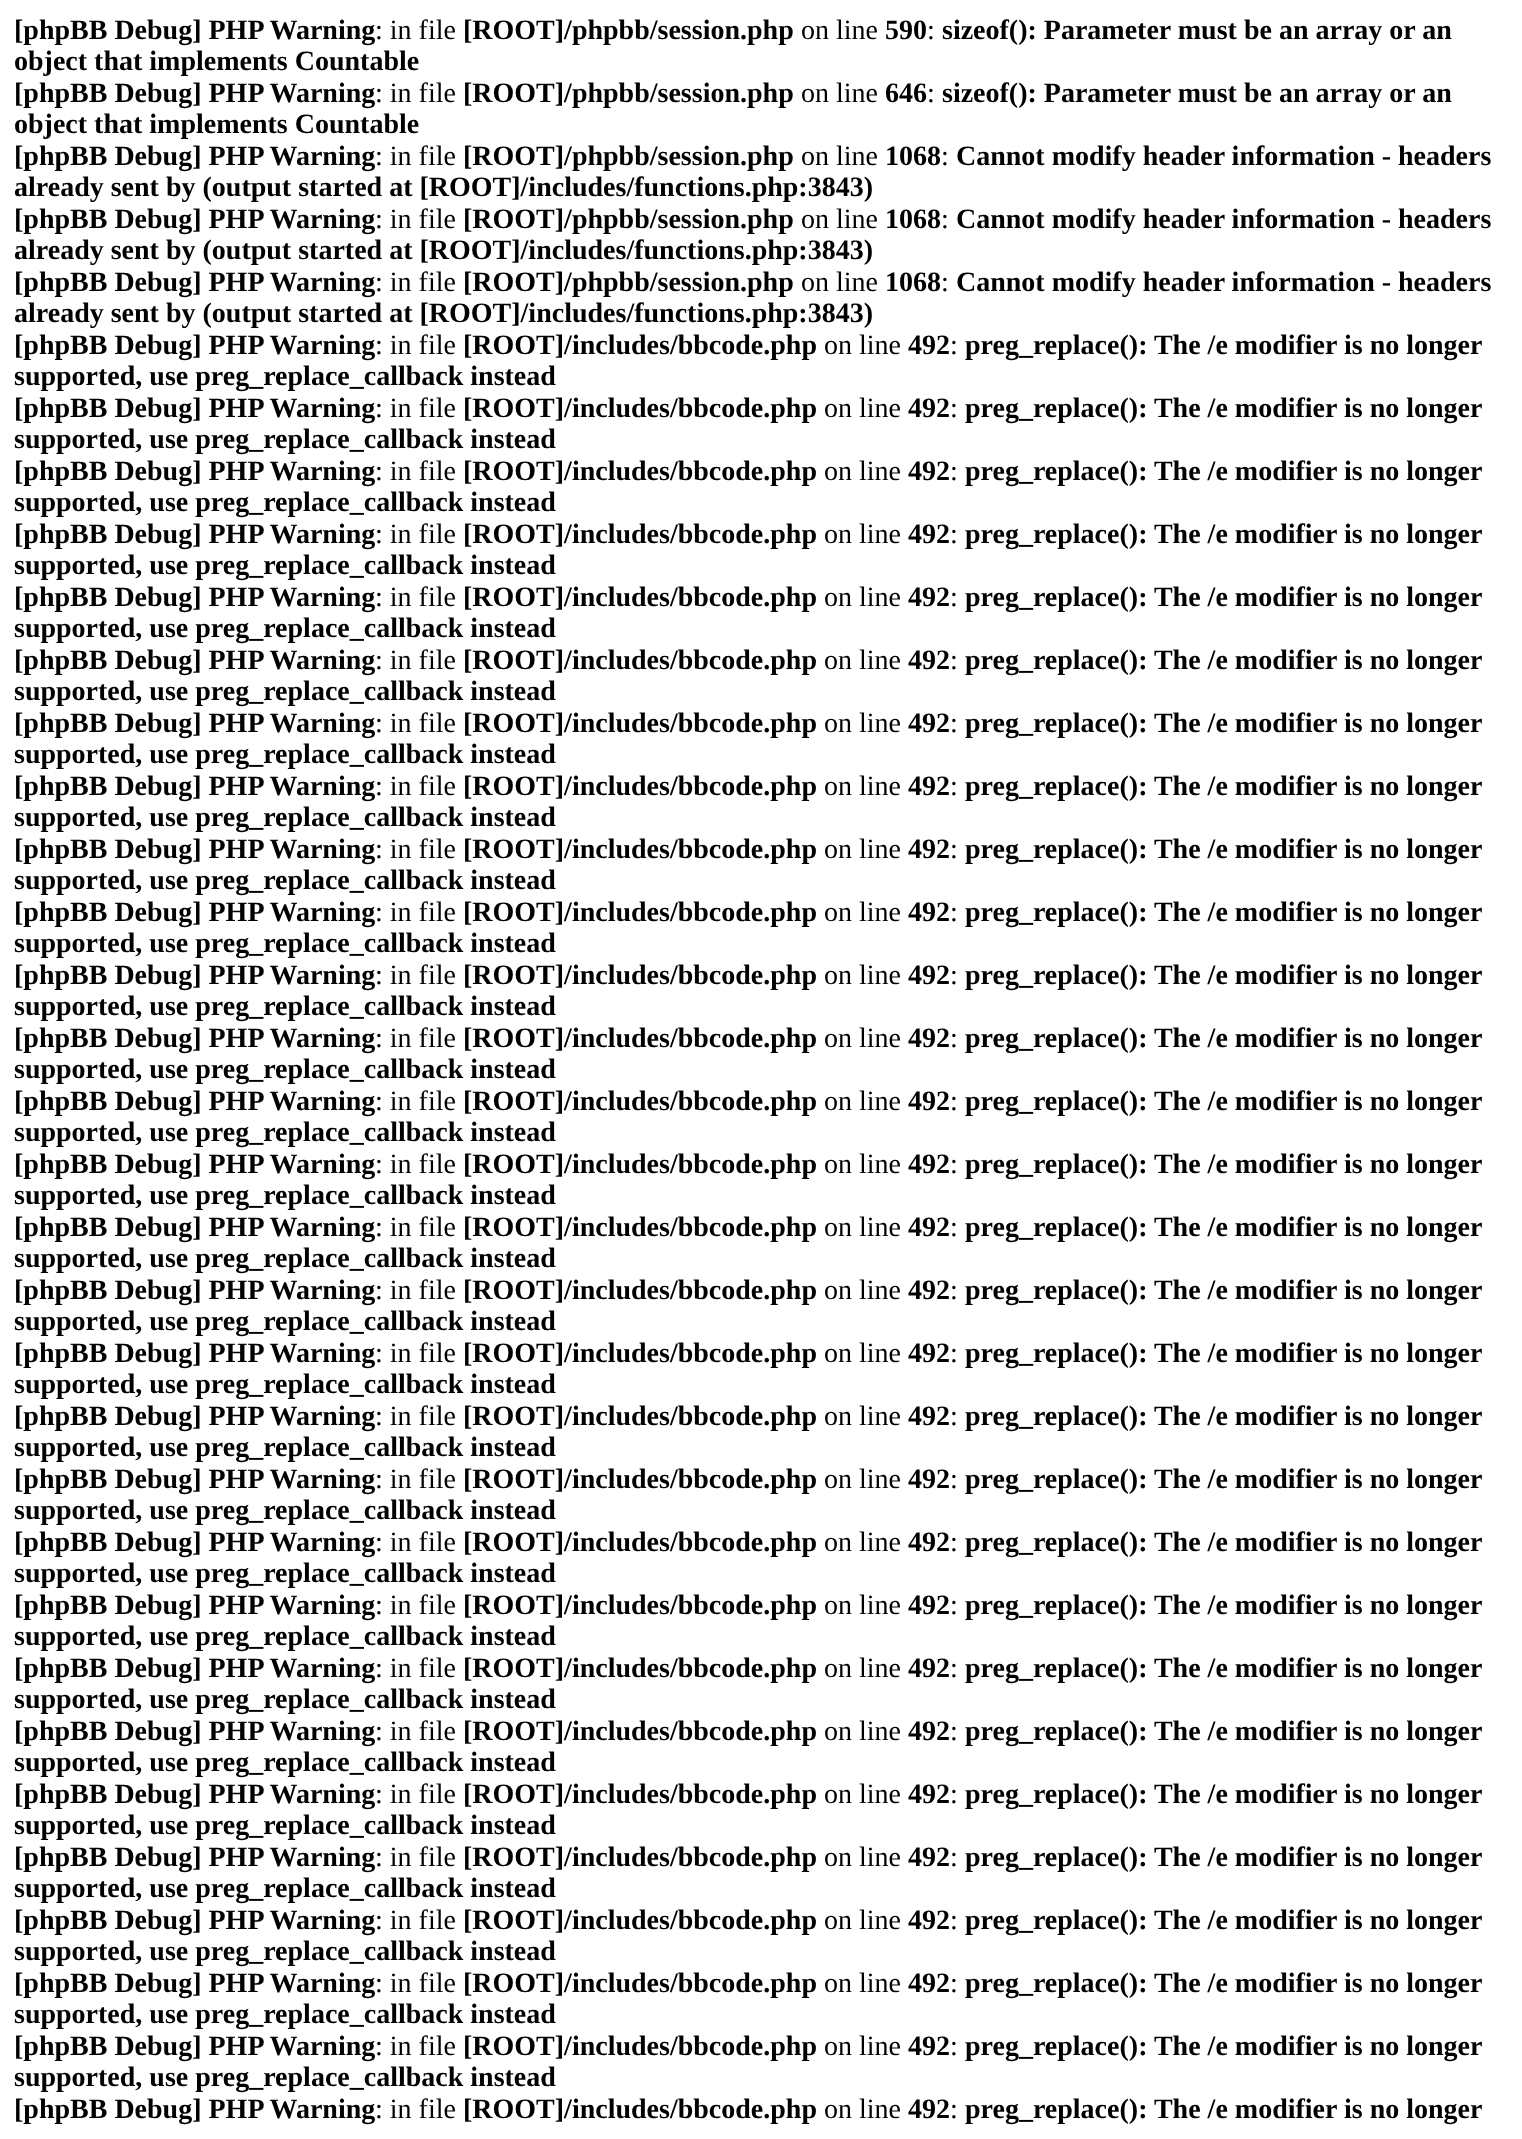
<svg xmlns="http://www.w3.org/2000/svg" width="1522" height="2139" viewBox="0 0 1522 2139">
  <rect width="100%" height="100%" fill="#fff"/>
  <text x="14" y="39" font-family="Liberation Serif" font-size="28" font-weight="bold" fill="#000">[phpBB Debug] PHP Warning</text>
  <text x="375" y="39" font-family="Liberation Serif" font-size="28" fill="#000">: in file</text>
  <text x="463" y="39" font-family="Liberation Serif" font-size="28" font-weight="bold" fill="#000">[ROOT]/phpbb/session.php</text>
  <text x="801" y="39" font-family="Liberation Serif" font-size="28" fill="#000">on line</text>
  <text x="885" y="39" font-family="Liberation Serif" font-size="28" font-weight="bold" fill="#000">590</text>
  <text x="927" y="39" font-family="Liberation Serif" font-size="28" fill="#000">:</text>
  <g font-family="Liberation Serif" font-size="28" font-weight="bold" fill="#000">
    <text x="942" y="39">sizeof(): Parameter must be an array or an</text>
    <text x="14" y="70">object that implements Countable</text>
    <text x="14" y="102">[phpBB Debug] PHP Warning</text>
  </g>
  <text x="375" y="102" font-family="Liberation Serif" font-size="28" fill="#000">: in file</text>
  <text x="463" y="102" font-family="Liberation Serif" font-size="28" font-weight="bold" fill="#000">[ROOT]/phpbb/session.php</text>
  <text x="801" y="102" font-family="Liberation Serif" font-size="28" fill="#000">on line</text>
  <text x="885" y="102" font-family="Liberation Serif" font-size="28" font-weight="bold" fill="#000">646</text>
  <text x="927" y="102" font-family="Liberation Serif" font-size="28" fill="#000">:</text>
  <g font-family="Liberation Serif" font-size="28" font-weight="bold" fill="#000">
    <text x="942" y="102">sizeof(): Parameter must be an array or an</text>
    <text x="14" y="133">object that implements Countable</text>
    <text x="14" y="165">[phpBB Debug] PHP Warning</text>
  </g>
  <text x="375" y="165" font-family="Liberation Serif" font-size="28" fill="#000">: in file</text>
  <text x="463" y="165" font-family="Liberation Serif" font-size="28" font-weight="bold" fill="#000">[ROOT]/phpbb/session.php</text>
  <text x="801" y="165" font-family="Liberation Serif" font-size="28" fill="#000">on line</text>
  <text x="885" y="165" font-family="Liberation Serif" font-size="28" font-weight="bold" fill="#000">1068</text>
  <text x="941" y="165" font-family="Liberation Serif" font-size="28" fill="#000">:</text>
  <g font-family="Liberation Serif" font-size="28" font-weight="bold" fill="#000">
    <text x="956" y="165">Cannot modify header information - headers</text>
    <text x="14" y="196">already sent by (output started at [ROOT]/includes/functions.php:3843)</text>
    <text x="14" y="228">[phpBB Debug] PHP Warning</text>
  </g>
  <text x="375" y="228" font-family="Liberation Serif" font-size="28" fill="#000">: in file</text>
  <text x="463" y="228" font-family="Liberation Serif" font-size="28" font-weight="bold" fill="#000">[ROOT]/phpbb/session.php</text>
  <text x="801" y="228" font-family="Liberation Serif" font-size="28" fill="#000">on line</text>
  <text x="885" y="228" font-family="Liberation Serif" font-size="28" font-weight="bold" fill="#000">1068</text>
  <text x="941" y="228" font-family="Liberation Serif" font-size="28" fill="#000">:</text>
  <g font-family="Liberation Serif" font-size="28" font-weight="bold" fill="#000">
    <text x="956" y="228">Cannot modify header information - headers</text>
    <text x="14" y="259">already sent by (output started at [ROOT]/includes/functions.php:3843)</text>
    <text x="14" y="291">[phpBB Debug] PHP Warning</text>
  </g>
  <text x="375" y="291" font-family="Liberation Serif" font-size="28" fill="#000">: in file</text>
  <text x="463" y="291" font-family="Liberation Serif" font-size="28" font-weight="bold" fill="#000">[ROOT]/phpbb/session.php</text>
  <text x="801" y="291" font-family="Liberation Serif" font-size="28" fill="#000">on line</text>
  <text x="885" y="291" font-family="Liberation Serif" font-size="28" font-weight="bold" fill="#000">1068</text>
  <text x="941" y="291" font-family="Liberation Serif" font-size="28" fill="#000">:</text>
  <g font-family="Liberation Serif" font-size="28" font-weight="bold" fill="#000">
    <text x="956" y="291">Cannot modify header information - headers</text>
    <text x="14" y="322">already sent by (output started at [ROOT]/includes/functions.php:3843)</text>
    <text x="14" y="354">[phpBB Debug] PHP Warning</text>
  </g>
  <text x="375" y="354" font-family="Liberation Serif" font-size="28" fill="#000">: in file</text>
  <text x="463" y="354" font-family="Liberation Serif" font-size="28" font-weight="bold" fill="#000">[ROOT]/includes/bbcode.php</text>
  <text x="824" y="354" font-family="Liberation Serif" font-size="28" fill="#000">on line</text>
  <text x="908" y="354" font-family="Liberation Serif" font-size="28" font-weight="bold" fill="#000">492</text>
  <text x="950" y="354" font-family="Liberation Serif" font-size="28" fill="#000">:</text>
  <g font-family="Liberation Serif" font-size="28" font-weight="bold" fill="#000">
    <text x="965" y="354">preg_replace(): The /e modifier is no longer</text>
    <text x="14" y="385">supported, use preg_replace_callback instead</text>
    <text x="14" y="417">[phpBB Debug] PHP Warning</text>
  </g>
  <text x="375" y="417" font-family="Liberation Serif" font-size="28" fill="#000">: in file</text>
  <text x="463" y="417" font-family="Liberation Serif" font-size="28" font-weight="bold" fill="#000">[ROOT]/includes/bbcode.php</text>
  <text x="824" y="417" font-family="Liberation Serif" font-size="28" fill="#000">on line</text>
  <text x="908" y="417" font-family="Liberation Serif" font-size="28" font-weight="bold" fill="#000">492</text>
  <text x="950" y="417" font-family="Liberation Serif" font-size="28" fill="#000">:</text>
  <g font-family="Liberation Serif" font-size="28" font-weight="bold" fill="#000">
    <text x="965" y="417">preg_replace(): The /e modifier is no longer</text>
    <text x="14" y="448">supported, use preg_replace_callback instead</text>
    <text x="14" y="480">[phpBB Debug] PHP Warning</text>
  </g>
  <text x="375" y="480" font-family="Liberation Serif" font-size="28" fill="#000">: in file</text>
  <text x="463" y="480" font-family="Liberation Serif" font-size="28" font-weight="bold" fill="#000">[ROOT]/includes/bbcode.php</text>
  <text x="824" y="480" font-family="Liberation Serif" font-size="28" fill="#000">on line</text>
  <text x="908" y="480" font-family="Liberation Serif" font-size="28" font-weight="bold" fill="#000">492</text>
  <text x="950" y="480" font-family="Liberation Serif" font-size="28" fill="#000">:</text>
  <g font-family="Liberation Serif" font-size="28" font-weight="bold" fill="#000">
    <text x="965" y="480">preg_replace(): The /e modifier is no longer</text>
    <text x="14" y="511">supported, use preg_replace_callback instead</text>
    <text x="14" y="543">[phpBB Debug] PHP Warning</text>
  </g>
  <text x="375" y="543" font-family="Liberation Serif" font-size="28" fill="#000">: in file</text>
  <text x="463" y="543" font-family="Liberation Serif" font-size="28" font-weight="bold" fill="#000">[ROOT]/includes/bbcode.php</text>
  <text x="824" y="543" font-family="Liberation Serif" font-size="28" fill="#000">on line</text>
  <text x="908" y="543" font-family="Liberation Serif" font-size="28" font-weight="bold" fill="#000">492</text>
  <text x="950" y="543" font-family="Liberation Serif" font-size="28" fill="#000">:</text>
  <g font-family="Liberation Serif" font-size="28" font-weight="bold" fill="#000">
    <text x="965" y="543">preg_replace(): The /e modifier is no longer</text>
    <text x="14" y="574">supported, use preg_replace_callback instead</text>
    <text x="14" y="606">[phpBB Debug] PHP Warning</text>
  </g>
  <text x="375" y="606" font-family="Liberation Serif" font-size="28" fill="#000">: in file</text>
  <text x="463" y="606" font-family="Liberation Serif" font-size="28" font-weight="bold" fill="#000">[ROOT]/includes/bbcode.php</text>
  <text x="824" y="606" font-family="Liberation Serif" font-size="28" fill="#000">on line</text>
  <text x="908" y="606" font-family="Liberation Serif" font-size="28" font-weight="bold" fill="#000">492</text>
  <text x="950" y="606" font-family="Liberation Serif" font-size="28" fill="#000">:</text>
  <g font-family="Liberation Serif" font-size="28" font-weight="bold" fill="#000">
    <text x="965" y="606">preg_replace(): The /e modifier is no longer</text>
    <text x="14" y="637">supported, use preg_replace_callback instead</text>
    <text x="14" y="669">[phpBB Debug] PHP Warning</text>
  </g>
  <text x="375" y="669" font-family="Liberation Serif" font-size="28" fill="#000">: in file</text>
  <text x="463" y="669" font-family="Liberation Serif" font-size="28" font-weight="bold" fill="#000">[ROOT]/includes/bbcode.php</text>
  <text x="824" y="669" font-family="Liberation Serif" font-size="28" fill="#000">on line</text>
  <text x="908" y="669" font-family="Liberation Serif" font-size="28" font-weight="bold" fill="#000">492</text>
  <text x="950" y="669" font-family="Liberation Serif" font-size="28" fill="#000">:</text>
  <g font-family="Liberation Serif" font-size="28" font-weight="bold" fill="#000">
    <text x="965" y="669">preg_replace(): The /e modifier is no longer</text>
    <text x="14" y="700">supported, use preg_replace_callback instead</text>
    <text x="14" y="732">[phpBB Debug] PHP Warning</text>
  </g>
  <text x="375" y="732" font-family="Liberation Serif" font-size="28" fill="#000">: in file</text>
  <text x="463" y="732" font-family="Liberation Serif" font-size="28" font-weight="bold" fill="#000">[ROOT]/includes/bbcode.php</text>
  <text x="824" y="732" font-family="Liberation Serif" font-size="28" fill="#000">on line</text>
  <text x="908" y="732" font-family="Liberation Serif" font-size="28" font-weight="bold" fill="#000">492</text>
  <text x="950" y="732" font-family="Liberation Serif" font-size="28" fill="#000">:</text>
  <g font-family="Liberation Serif" font-size="28" font-weight="bold" fill="#000">
    <text x="965" y="732">preg_replace(): The /e modifier is no longer</text>
    <text x="14" y="763">supported, use preg_replace_callback instead</text>
    <text x="14" y="795">[phpBB Debug] PHP Warning</text>
  </g>
  <text x="375" y="795" font-family="Liberation Serif" font-size="28" fill="#000">: in file</text>
  <text x="463" y="795" font-family="Liberation Serif" font-size="28" font-weight="bold" fill="#000">[ROOT]/includes/bbcode.php</text>
  <text x="824" y="795" font-family="Liberation Serif" font-size="28" fill="#000">on line</text>
  <text x="908" y="795" font-family="Liberation Serif" font-size="28" font-weight="bold" fill="#000">492</text>
  <text x="950" y="795" font-family="Liberation Serif" font-size="28" fill="#000">:</text>
  <g font-family="Liberation Serif" font-size="28" font-weight="bold" fill="#000">
    <text x="965" y="795">preg_replace(): The /e modifier is no longer</text>
    <text x="14" y="826">supported, use preg_replace_callback instead</text>
    <text x="14" y="858">[phpBB Debug] PHP Warning</text>
  </g>
  <text x="375" y="858" font-family="Liberation Serif" font-size="28" fill="#000">: in file</text>
  <text x="463" y="858" font-family="Liberation Serif" font-size="28" font-weight="bold" fill="#000">[ROOT]/includes/bbcode.php</text>
  <text x="824" y="858" font-family="Liberation Serif" font-size="28" fill="#000">on line</text>
  <text x="908" y="858" font-family="Liberation Serif" font-size="28" font-weight="bold" fill="#000">492</text>
  <text x="950" y="858" font-family="Liberation Serif" font-size="28" fill="#000">:</text>
  <g font-family="Liberation Serif" font-size="28" font-weight="bold" fill="#000">
    <text x="965" y="858">preg_replace(): The /e modifier is no longer</text>
    <text x="14" y="889">supported, use preg_replace_callback instead</text>
    <text x="14" y="921">[phpBB Debug] PHP Warning</text>
  </g>
  <text x="375" y="921" font-family="Liberation Serif" font-size="28" fill="#000">: in file</text>
  <text x="463" y="921" font-family="Liberation Serif" font-size="28" font-weight="bold" fill="#000">[ROOT]/includes/bbcode.php</text>
  <text x="824" y="921" font-family="Liberation Serif" font-size="28" fill="#000">on line</text>
  <text x="908" y="921" font-family="Liberation Serif" font-size="28" font-weight="bold" fill="#000">492</text>
  <text x="950" y="921" font-family="Liberation Serif" font-size="28" fill="#000">:</text>
  <g font-family="Liberation Serif" font-size="28" font-weight="bold" fill="#000">
    <text x="965" y="921">preg_replace(): The /e modifier is no longer</text>
    <text x="14" y="952">supported, use preg_replace_callback instead</text>
    <text x="14" y="984">[phpBB Debug] PHP Warning</text>
  </g>
  <text x="375" y="984" font-family="Liberation Serif" font-size="28" fill="#000">: in file</text>
  <text x="463" y="984" font-family="Liberation Serif" font-size="28" font-weight="bold" fill="#000">[ROOT]/includes/bbcode.php</text>
  <text x="824" y="984" font-family="Liberation Serif" font-size="28" fill="#000">on line</text>
  <text x="908" y="984" font-family="Liberation Serif" font-size="28" font-weight="bold" fill="#000">492</text>
  <text x="950" y="984" font-family="Liberation Serif" font-size="28" fill="#000">:</text>
  <g font-family="Liberation Serif" font-size="28" font-weight="bold" fill="#000">
    <text x="965" y="984">preg_replace(): The /e modifier is no longer</text>
    <text x="14" y="1015">supported, use preg_replace_callback instead</text>
    <text x="14" y="1047">[phpBB Debug] PHP Warning</text>
  </g>
  <text x="375" y="1047" font-family="Liberation Serif" font-size="28" fill="#000">: in file</text>
  <text x="463" y="1047" font-family="Liberation Serif" font-size="28" font-weight="bold" fill="#000">[ROOT]/includes/bbcode.php</text>
  <text x="824" y="1047" font-family="Liberation Serif" font-size="28" fill="#000">on line</text>
  <text x="908" y="1047" font-family="Liberation Serif" font-size="28" font-weight="bold" fill="#000">492</text>
  <text x="950" y="1047" font-family="Liberation Serif" font-size="28" fill="#000">:</text>
  <g font-family="Liberation Serif" font-size="28" font-weight="bold" fill="#000">
    <text x="965" y="1047">preg_replace(): The /e modifier is no longer</text>
    <text x="14" y="1078">supported, use preg_replace_callback instead</text>
    <text x="14" y="1110">[phpBB Debug] PHP Warning</text>
  </g>
  <text x="375" y="1110" font-family="Liberation Serif" font-size="28" fill="#000">: in file</text>
  <text x="463" y="1110" font-family="Liberation Serif" font-size="28" font-weight="bold" fill="#000">[ROOT]/includes/bbcode.php</text>
  <text x="824" y="1110" font-family="Liberation Serif" font-size="28" fill="#000">on line</text>
  <text x="908" y="1110" font-family="Liberation Serif" font-size="28" font-weight="bold" fill="#000">492</text>
  <text x="950" y="1110" font-family="Liberation Serif" font-size="28" fill="#000">:</text>
  <g font-family="Liberation Serif" font-size="28" font-weight="bold" fill="#000">
    <text x="965" y="1110">preg_replace(): The /e modifier is no longer</text>
    <text x="14" y="1141">supported, use preg_replace_callback instead</text>
    <text x="14" y="1173">[phpBB Debug] PHP Warning</text>
  </g>
  <text x="375" y="1173" font-family="Liberation Serif" font-size="28" fill="#000">: in file</text>
  <text x="463" y="1173" font-family="Liberation Serif" font-size="28" font-weight="bold" fill="#000">[ROOT]/includes/bbcode.php</text>
  <text x="824" y="1173" font-family="Liberation Serif" font-size="28" fill="#000">on line</text>
  <text x="908" y="1173" font-family="Liberation Serif" font-size="28" font-weight="bold" fill="#000">492</text>
  <text x="950" y="1173" font-family="Liberation Serif" font-size="28" fill="#000">:</text>
  <g font-family="Liberation Serif" font-size="28" font-weight="bold" fill="#000">
    <text x="965" y="1173">preg_replace(): The /e modifier is no longer</text>
    <text x="14" y="1204">supported, use preg_replace_callback instead</text>
    <text x="14" y="1236">[phpBB Debug] PHP Warning</text>
  </g>
  <text x="375" y="1236" font-family="Liberation Serif" font-size="28" fill="#000">: in file</text>
  <text x="463" y="1236" font-family="Liberation Serif" font-size="28" font-weight="bold" fill="#000">[ROOT]/includes/bbcode.php</text>
  <text x="824" y="1236" font-family="Liberation Serif" font-size="28" fill="#000">on line</text>
  <text x="908" y="1236" font-family="Liberation Serif" font-size="28" font-weight="bold" fill="#000">492</text>
  <text x="950" y="1236" font-family="Liberation Serif" font-size="28" fill="#000">:</text>
  <g font-family="Liberation Serif" font-size="28" font-weight="bold" fill="#000">
    <text x="965" y="1236">preg_replace(): The /e modifier is no longer</text>
    <text x="14" y="1267">supported, use preg_replace_callback instead</text>
    <text x="14" y="1299">[phpBB Debug] PHP Warning</text>
  </g>
  <text x="375" y="1299" font-family="Liberation Serif" font-size="28" fill="#000">: in file</text>
  <text x="463" y="1299" font-family="Liberation Serif" font-size="28" font-weight="bold" fill="#000">[ROOT]/includes/bbcode.php</text>
  <text x="824" y="1299" font-family="Liberation Serif" font-size="28" fill="#000">on line</text>
  <text x="908" y="1299" font-family="Liberation Serif" font-size="28" font-weight="bold" fill="#000">492</text>
  <text x="950" y="1299" font-family="Liberation Serif" font-size="28" fill="#000">:</text>
  <g font-family="Liberation Serif" font-size="28" font-weight="bold" fill="#000">
    <text x="965" y="1299">preg_replace(): The /e modifier is no longer</text>
    <text x="14" y="1330">supported, use preg_replace_callback instead</text>
    <text x="14" y="1362">[phpBB Debug] PHP Warning</text>
  </g>
  <text x="375" y="1362" font-family="Liberation Serif" font-size="28" fill="#000">: in file</text>
  <text x="463" y="1362" font-family="Liberation Serif" font-size="28" font-weight="bold" fill="#000">[ROOT]/includes/bbcode.php</text>
  <text x="824" y="1362" font-family="Liberation Serif" font-size="28" fill="#000">on line</text>
  <text x="908" y="1362" font-family="Liberation Serif" font-size="28" font-weight="bold" fill="#000">492</text>
  <text x="950" y="1362" font-family="Liberation Serif" font-size="28" fill="#000">:</text>
  <g font-family="Liberation Serif" font-size="28" font-weight="bold" fill="#000">
    <text x="965" y="1362">preg_replace(): The /e modifier is no longer</text>
    <text x="14" y="1393">supported, use preg_replace_callback instead</text>
    <text x="14" y="1425">[phpBB Debug] PHP Warning</text>
  </g>
  <text x="375" y="1425" font-family="Liberation Serif" font-size="28" fill="#000">: in file</text>
  <text x="463" y="1425" font-family="Liberation Serif" font-size="28" font-weight="bold" fill="#000">[ROOT]/includes/bbcode.php</text>
  <text x="824" y="1425" font-family="Liberation Serif" font-size="28" fill="#000">on line</text>
  <text x="908" y="1425" font-family="Liberation Serif" font-size="28" font-weight="bold" fill="#000">492</text>
  <text x="950" y="1425" font-family="Liberation Serif" font-size="28" fill="#000">:</text>
  <g font-family="Liberation Serif" font-size="28" font-weight="bold" fill="#000">
    <text x="965" y="1425">preg_replace(): The /e modifier is no longer</text>
    <text x="14" y="1456">supported, use preg_replace_callback instead</text>
    <text x="14" y="1488">[phpBB Debug] PHP Warning</text>
  </g>
  <text x="375" y="1488" font-family="Liberation Serif" font-size="28" fill="#000">: in file</text>
  <text x="463" y="1488" font-family="Liberation Serif" font-size="28" font-weight="bold" fill="#000">[ROOT]/includes/bbcode.php</text>
  <text x="824" y="1488" font-family="Liberation Serif" font-size="28" fill="#000">on line</text>
  <text x="908" y="1488" font-family="Liberation Serif" font-size="28" font-weight="bold" fill="#000">492</text>
  <text x="950" y="1488" font-family="Liberation Serif" font-size="28" fill="#000">:</text>
  <g font-family="Liberation Serif" font-size="28" font-weight="bold" fill="#000">
    <text x="965" y="1488">preg_replace(): The /e modifier is no longer</text>
    <text x="14" y="1519">supported, use preg_replace_callback instead</text>
    <text x="14" y="1551">[phpBB Debug] PHP Warning</text>
  </g>
  <text x="375" y="1551" font-family="Liberation Serif" font-size="28" fill="#000">: in file</text>
  <text x="463" y="1551" font-family="Liberation Serif" font-size="28" font-weight="bold" fill="#000">[ROOT]/includes/bbcode.php</text>
  <text x="824" y="1551" font-family="Liberation Serif" font-size="28" fill="#000">on line</text>
  <text x="908" y="1551" font-family="Liberation Serif" font-size="28" font-weight="bold" fill="#000">492</text>
  <text x="950" y="1551" font-family="Liberation Serif" font-size="28" fill="#000">:</text>
  <g font-family="Liberation Serif" font-size="28" font-weight="bold" fill="#000">
    <text x="965" y="1551">preg_replace(): The /e modifier is no longer</text>
    <text x="14" y="1582">supported, use preg_replace_callback instead</text>
    <text x="14" y="1614">[phpBB Debug] PHP Warning</text>
  </g>
  <text x="375" y="1614" font-family="Liberation Serif" font-size="28" fill="#000">: in file</text>
  <text x="463" y="1614" font-family="Liberation Serif" font-size="28" font-weight="bold" fill="#000">[ROOT]/includes/bbcode.php</text>
  <text x="824" y="1614" font-family="Liberation Serif" font-size="28" fill="#000">on line</text>
  <text x="908" y="1614" font-family="Liberation Serif" font-size="28" font-weight="bold" fill="#000">492</text>
  <text x="950" y="1614" font-family="Liberation Serif" font-size="28" fill="#000">:</text>
  <g font-family="Liberation Serif" font-size="28" font-weight="bold" fill="#000">
    <text x="965" y="1614">preg_replace(): The /e modifier is no longer</text>
    <text x="14" y="1645">supported, use preg_replace_callback instead</text>
    <text x="14" y="1677">[phpBB Debug] PHP Warning</text>
  </g>
  <text x="375" y="1677" font-family="Liberation Serif" font-size="28" fill="#000">: in file</text>
  <text x="463" y="1677" font-family="Liberation Serif" font-size="28" font-weight="bold" fill="#000">[ROOT]/includes/bbcode.php</text>
  <text x="824" y="1677" font-family="Liberation Serif" font-size="28" fill="#000">on line</text>
  <text x="908" y="1677" font-family="Liberation Serif" font-size="28" font-weight="bold" fill="#000">492</text>
  <text x="950" y="1677" font-family="Liberation Serif" font-size="28" fill="#000">:</text>
  <g font-family="Liberation Serif" font-size="28" font-weight="bold" fill="#000">
    <text x="965" y="1677">preg_replace(): The /e modifier is no longer</text>
    <text x="14" y="1708">supported, use preg_replace_callback instead</text>
    <text x="14" y="1740">[phpBB Debug] PHP Warning</text>
  </g>
  <text x="375" y="1740" font-family="Liberation Serif" font-size="28" fill="#000">: in file</text>
  <text x="463" y="1740" font-family="Liberation Serif" font-size="28" font-weight="bold" fill="#000">[ROOT]/includes/bbcode.php</text>
  <text x="824" y="1740" font-family="Liberation Serif" font-size="28" fill="#000">on line</text>
  <text x="908" y="1740" font-family="Liberation Serif" font-size="28" font-weight="bold" fill="#000">492</text>
  <text x="950" y="1740" font-family="Liberation Serif" font-size="28" fill="#000">:</text>
  <g font-family="Liberation Serif" font-size="28" font-weight="bold" fill="#000">
    <text x="965" y="1740">preg_replace(): The /e modifier is no longer</text>
    <text x="14" y="1771">supported, use preg_replace_callback instead</text>
    <text x="14" y="1803">[phpBB Debug] PHP Warning</text>
  </g>
  <text x="375" y="1803" font-family="Liberation Serif" font-size="28" fill="#000">: in file</text>
  <text x="463" y="1803" font-family="Liberation Serif" font-size="28" font-weight="bold" fill="#000">[ROOT]/includes/bbcode.php</text>
  <text x="824" y="1803" font-family="Liberation Serif" font-size="28" fill="#000">on line</text>
  <text x="908" y="1803" font-family="Liberation Serif" font-size="28" font-weight="bold" fill="#000">492</text>
  <text x="950" y="1803" font-family="Liberation Serif" font-size="28" fill="#000">:</text>
  <g font-family="Liberation Serif" font-size="28" font-weight="bold" fill="#000">
    <text x="965" y="1803">preg_replace(): The /e modifier is no longer</text>
    <text x="14" y="1834">supported, use preg_replace_callback instead</text>
    <text x="14" y="1866">[phpBB Debug] PHP Warning</text>
  </g>
  <text x="375" y="1866" font-family="Liberation Serif" font-size="28" fill="#000">: in file</text>
  <text x="463" y="1866" font-family="Liberation Serif" font-size="28" font-weight="bold" fill="#000">[ROOT]/includes/bbcode.php</text>
  <text x="824" y="1866" font-family="Liberation Serif" font-size="28" fill="#000">on line</text>
  <text x="908" y="1866" font-family="Liberation Serif" font-size="28" font-weight="bold" fill="#000">492</text>
  <text x="950" y="1866" font-family="Liberation Serif" font-size="28" fill="#000">:</text>
  <g font-family="Liberation Serif" font-size="28" font-weight="bold" fill="#000">
    <text x="965" y="1866">preg_replace(): The /e modifier is no longer</text>
    <text x="14" y="1897">supported, use preg_replace_callback instead</text>
    <text x="14" y="1929">[phpBB Debug] PHP Warning</text>
  </g>
  <text x="375" y="1929" font-family="Liberation Serif" font-size="28" fill="#000">: in file</text>
  <text x="463" y="1929" font-family="Liberation Serif" font-size="28" font-weight="bold" fill="#000">[ROOT]/includes/bbcode.php</text>
  <text x="824" y="1929" font-family="Liberation Serif" font-size="28" fill="#000">on line</text>
  <text x="908" y="1929" font-family="Liberation Serif" font-size="28" font-weight="bold" fill="#000">492</text>
  <text x="950" y="1929" font-family="Liberation Serif" font-size="28" fill="#000">:</text>
  <g font-family="Liberation Serif" font-size="28" font-weight="bold" fill="#000">
    <text x="965" y="1929">preg_replace(): The /e modifier is no longer</text>
    <text x="14" y="1960">supported, use preg_replace_callback instead</text>
    <text x="14" y="1992">[phpBB Debug] PHP Warning</text>
  </g>
  <text x="375" y="1992" font-family="Liberation Serif" font-size="28" fill="#000">: in file</text>
  <text x="463" y="1992" font-family="Liberation Serif" font-size="28" font-weight="bold" fill="#000">[ROOT]/includes/bbcode.php</text>
  <text x="824" y="1992" font-family="Liberation Serif" font-size="28" fill="#000">on line</text>
  <text x="908" y="1992" font-family="Liberation Serif" font-size="28" font-weight="bold" fill="#000">492</text>
  <text x="950" y="1992" font-family="Liberation Serif" font-size="28" fill="#000">:</text>
  <g font-family="Liberation Serif" font-size="28" font-weight="bold" fill="#000">
    <text x="965" y="1992">preg_replace(): The /e modifier is no longer</text>
    <text x="14" y="2023">supported, use preg_replace_callback instead</text>
    <text x="14" y="2055">[phpBB Debug] PHP Warning</text>
  </g>
  <text x="375" y="2055" font-family="Liberation Serif" font-size="28" fill="#000">: in file</text>
  <text x="463" y="2055" font-family="Liberation Serif" font-size="28" font-weight="bold" fill="#000">[ROOT]/includes/bbcode.php</text>
  <text x="824" y="2055" font-family="Liberation Serif" font-size="28" fill="#000">on line</text>
  <text x="908" y="2055" font-family="Liberation Serif" font-size="28" font-weight="bold" fill="#000">492</text>
  <text x="950" y="2055" font-family="Liberation Serif" font-size="28" fill="#000">:</text>
  <g font-family="Liberation Serif" font-size="28" font-weight="bold" fill="#000">
    <text x="965" y="2055">preg_replace(): The /e modifier is no longer</text>
    <text x="14" y="2086">supported, use preg_replace_callback instead</text>
    <text x="14" y="2118">[phpBB Debug] PHP Warning</text>
  </g>
  <text x="375" y="2118" font-family="Liberation Serif" font-size="28" fill="#000">: in file</text>
  <text x="463" y="2118" font-family="Liberation Serif" font-size="28" font-weight="bold" fill="#000">[ROOT]/includes/bbcode.php</text>
  <text x="824" y="2118" font-family="Liberation Serif" font-size="28" fill="#000">on line</text>
  <text x="908" y="2118" font-family="Liberation Serif" font-size="28" font-weight="bold" fill="#000">492</text>
  <text x="950" y="2118" font-family="Liberation Serif" font-size="28" fill="#000">:</text>
  <text x="965" y="2118" font-family="Liberation Serif" font-size="28" font-weight="bold" fill="#000">preg_replace(): The /e modifier is no longer</text>
</svg>
